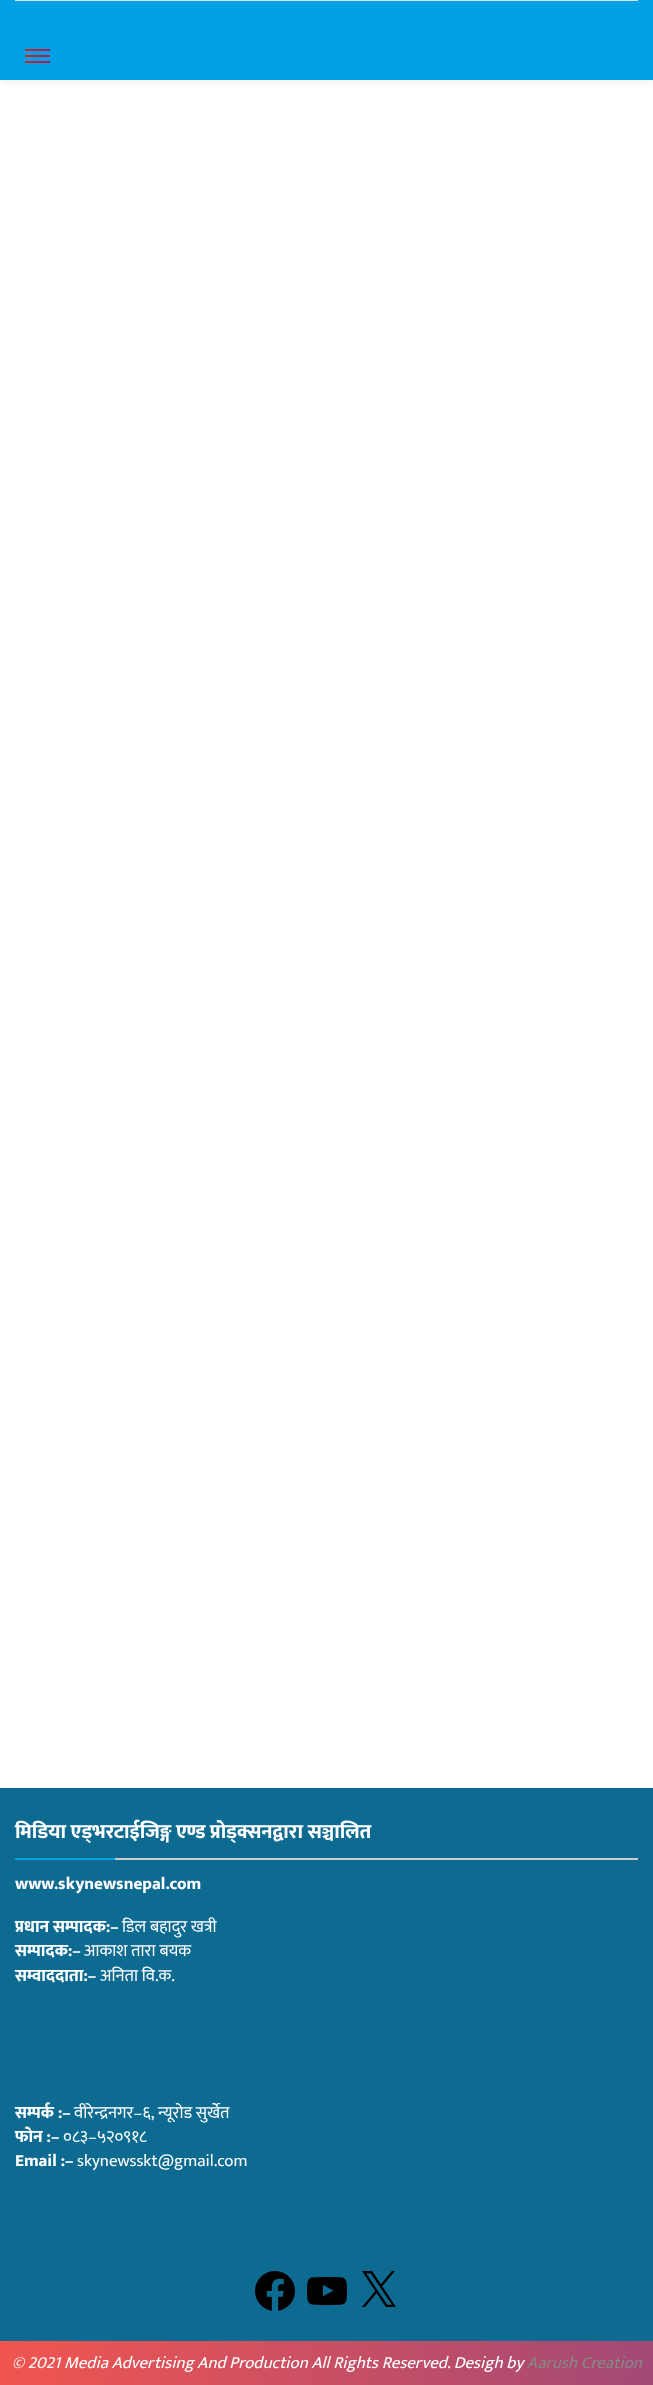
<svg xmlns="http://www.w3.org/2000/svg" width="653" height="2385" viewBox="0 0 653 2385">
  <defs>
    <linearGradient id="g1" gradientUnits="userSpaceOnUse" x1="25" y1="50" x2="50" y2="50"><stop offset="0" stop-color="#c62827"/><stop offset="1" stop-color="#ae1558"/></linearGradient>
    <linearGradient id="g2" gradientUnits="userSpaceOnUse" x1="0" y1="2363" x2="653" y2="2363"><stop offset="0.01" stop-color="#f0554f"/><stop offset="0.41" stop-color="#d15060"/><stop offset="1" stop-color="#a24976"/></linearGradient>
  </defs>
  <rect width="100%" height="100%" fill="#fff"/>
  <path d="M0 0h653v80H0z" fill="#0000001a" filter="blur(5px)"/>
  <path d="M0 0h653v80H0z" fill="#00a1e4"/>
  <path d="M15 0h623v1H15z" fill="#e4e4e4"/>
  <path d="M25 49h25v2H25z" fill="url(#g1)"/>
  <image x="25" y="55" width="25" height="8" href="img/1.png"/>
  <path d="M0 1788h653v553H0z" fill="#0d6a91"/>
  <path d="M115 1858h523v2H115z" fill="#ccc"/>
  <path d="M15 1858h100v2H15z" fill="#00a1e4"/>
  <image x="255" y="2271" width="40" height="40" href="img/2.png"/>
  <image x="307" y="2276" width="40" height="30" href="img/3.png"/>
  <image x="362" y="2271" width="34" height="36" href="img/4.png"/>
  <path d="M0 2341h653v44H0z" fill="url(#g2)"/>
  <text x="15" y="1838" font-family="Ek Mukta" font-size="20" font-weight="800" fill="#fff">मिडिया एड्भरटाईजिङ्ग एण्ड प्रोड्क्सनद्वारा सञ्चालित</text>
  <g font-family="Ek Mukta" font-size="17" font-weight="800" fill="#fff">
    <text x="15" y="1889">www.skynewsnepal.com</text>
    <text x="15" y="1932">प्रधान सम्पादक:–</text>
  </g>
  <text x="122" y="1932" font-family="Ek Mukta" font-size="17" fill="#fff">डिल बहादुर खत्री</text>
  <text x="15" y="1956" font-family="Ek Mukta" font-size="17" font-weight="800" fill="#fff">सम्पादक:–</text>
  <text x="84" y="1956" font-family="Ek Mukta" font-size="17" fill="#fff">आकाश तारा बयक</text>
  <text x="15" y="1981" font-family="Ek Mukta" font-size="17" font-weight="800" fill="#fff">सम्वाददाता:–</text>
  <text x="100" y="1981" font-family="Ek Mukta" font-size="17" fill="#fff">अनिता वि.क.</text>
  <text x="15" y="2118" font-family="Ek Mukta" font-size="17" font-weight="800" fill="#fff">सम्पर्क :–</text>
  <text x="74" y="2118" font-family="Ek Mukta" font-size="17" fill="#fff">वीरेन्द्रनगर–६, न्यूरोड सुर्खेत</text>
  <text x="15" y="2142" font-family="Ek Mukta" font-size="17" font-weight="800" fill="#fff">फोन :–</text>
  <text x="63" y="2142" font-family="Ek Mukta" font-size="17" fill="#fff">०८३–५२०९१८</text>
  <text x="15" y="2166" font-family="Ek Mukta" font-size="17" font-weight="800" fill="#fff">Email :–</text>
  <text x="77" y="2166" font-family="Ek Mukta" font-size="17" fill="#fff">skynewsskt@gmail.com</text>
  <text x="12" y="2368" font-family="Ek Mukta" font-size="17" font-style="italic" fill="#fff">© 2021 Media Advertising And Production All Rights Reserved. Desigh by</text>
  <text x="527" y="2368" font-family="Ek Mukta" font-size="17" font-style="italic" fill="#888">Aarush Creation</text>
</svg>
